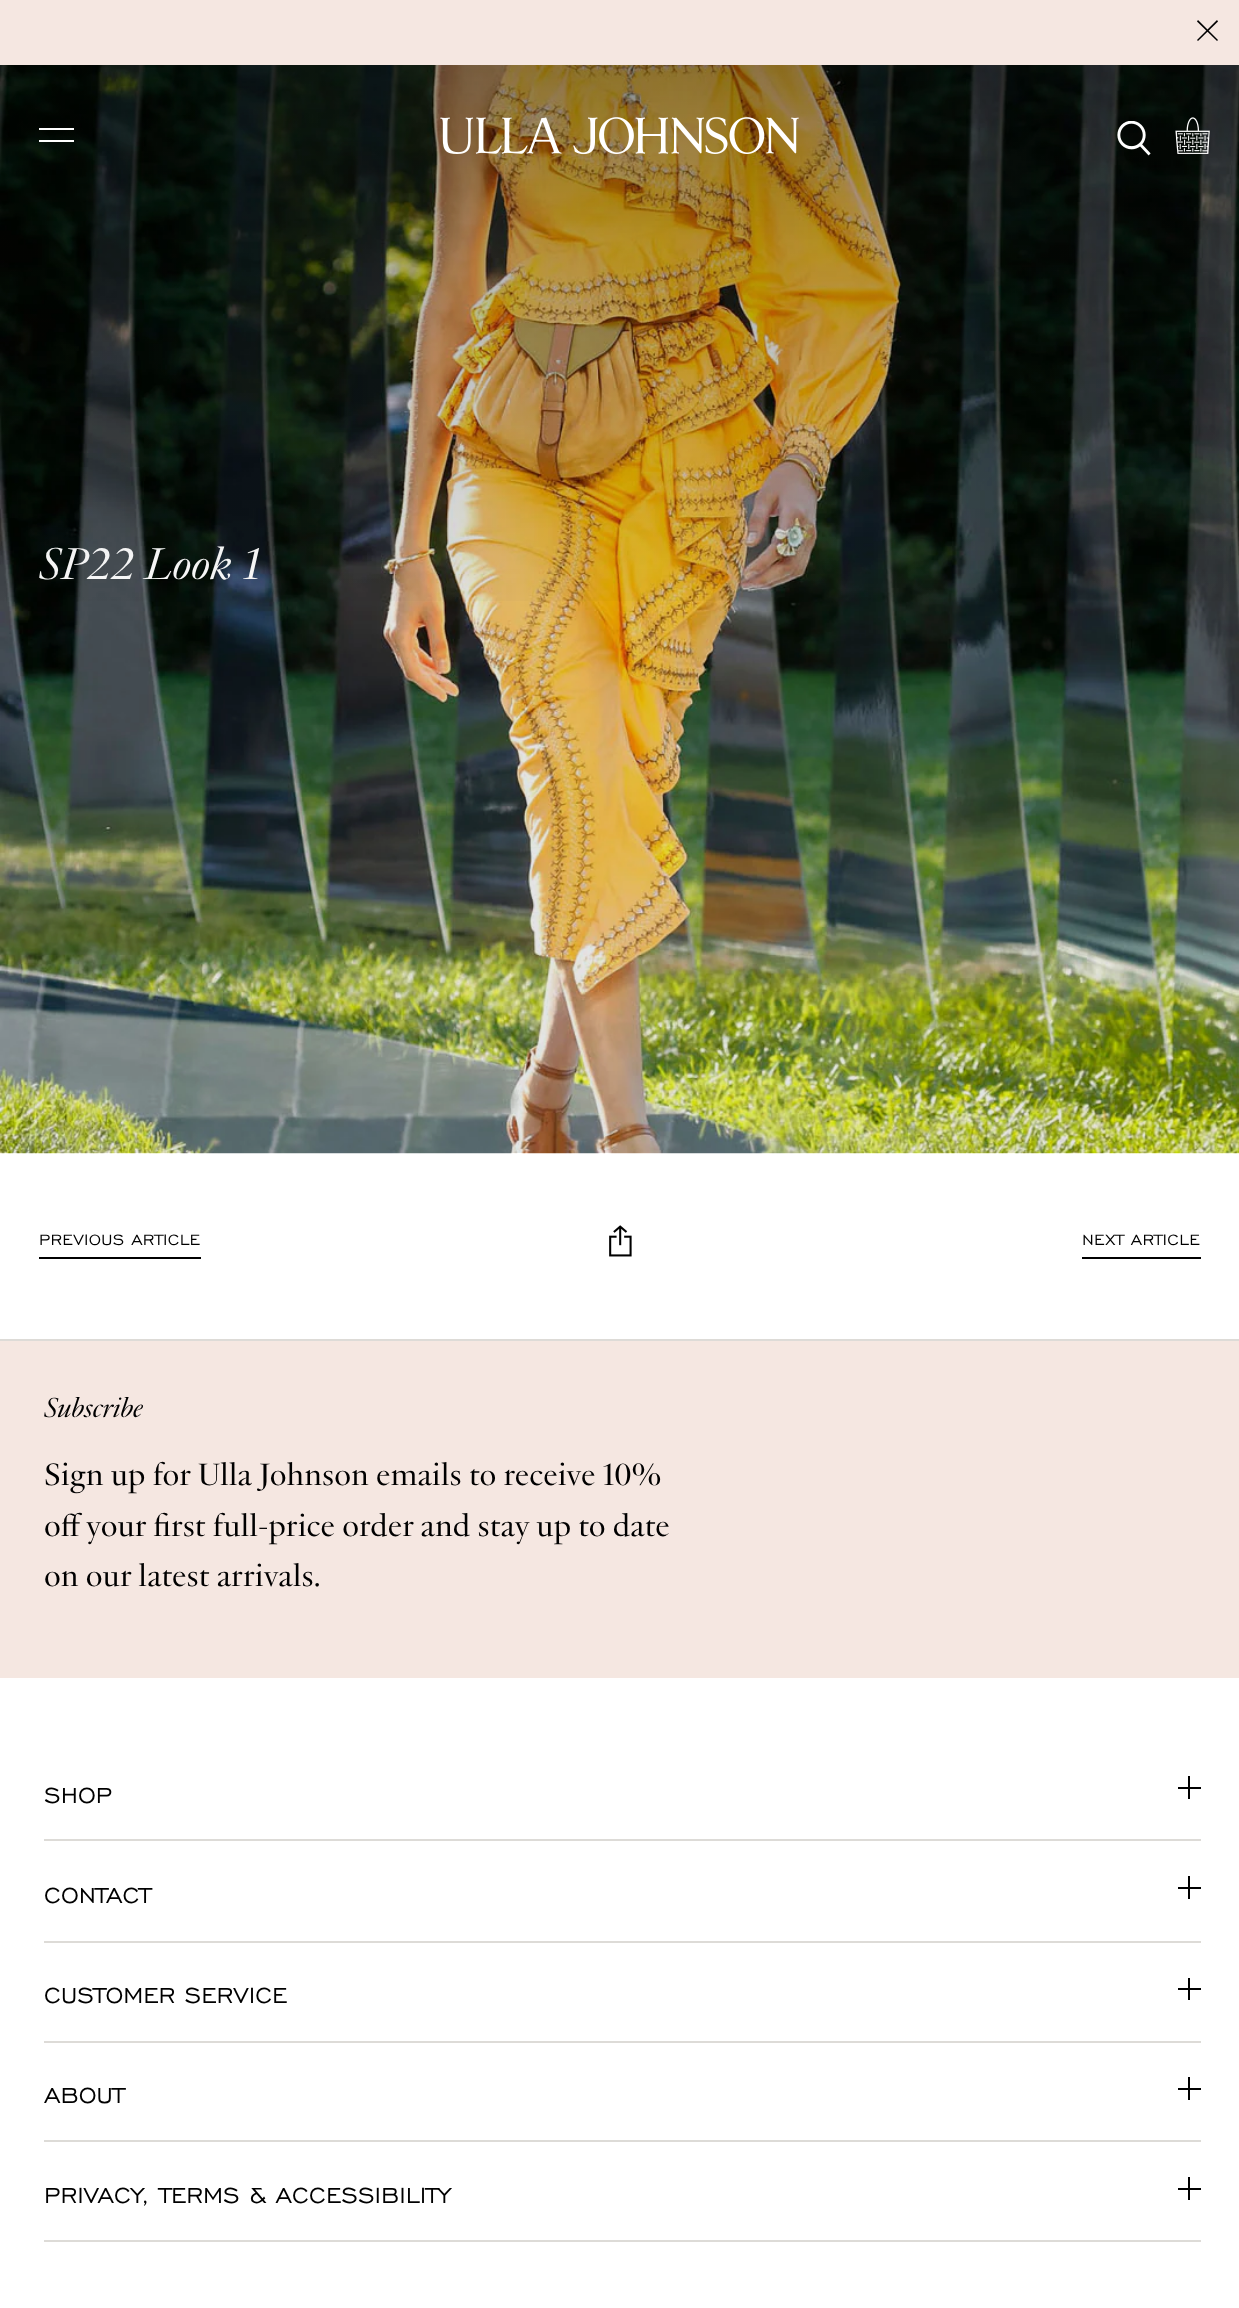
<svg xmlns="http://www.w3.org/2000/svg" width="1239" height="2308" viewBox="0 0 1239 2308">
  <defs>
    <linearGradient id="g1" gradientUnits="userSpaceOnUse" x1="620" y1="65" x2="620" y2="642"><stop offset="0" stop-color="#000" stop-opacity="0.3"/><stop offset="1" stop-color="#000" stop-opacity="0"/></linearGradient>
  </defs>
  <rect width="100%" height="100%" fill="#fff"/>
  <path d="M0 0h1239v65H0z" fill="#f5e7e1"/>
  <path d="M1198 20L1218 40L1217 41L1197 21.5Z" fill="#000"/>
  <path d="M1197 40L1217 20L1218 21.5L1198 41Z" fill="#000"/>
  <image x="0" y="65" width="1239" height="1089" href="img/4.png"/>
  <path d="M39 1257h162v2H39z" fill="#000"/>
  <image x="609" y="1225" width="23" height="32" href="img/5.png"/>
  <path d="M1082 1257h119v2H1082z" fill="#000"/>
  <path d="M0 1339h1239v2H0z" fill="#dddbd7"/>
  <path d="M0 1341h1239v337H0z" fill="#f5e7e1"/>
  <path d="M44 1839h1157v2H44z" fill="#dddbd7"/>
  <path d="M1188 1776h2v23H1188z" fill="#000"/>
  <path d="M1178 1787h23v2H1178z" fill="#000"/>
  <path d="M44 1941h1157v2H44z" fill="#dddbd7"/>
  <path d="M1188 1876h2v23H1188z" fill="#000"/>
  <path d="M1178 1887h23v2H1178z" fill="#000"/>
  <path d="M44 2041h1157v2H44z" fill="#dddbd7"/>
  <path d="M1188 1978h2v22H1188z" fill="#000"/>
  <path d="M1178 1988h23v2H1178z" fill="#000"/>
  <path d="M44 2140h1157v2H44z" fill="#dddbd7"/>
  <path d="M1188 2077h2v23H1188z" fill="#000"/>
  <path d="M1178 2088h23v2H1178z" fill="#000"/>
  <path d="M44 2240h1157v2H44z" fill="#dddbd7"/>
  <path d="M1188 2177h2v23H1188z" fill="#000"/>
  <path d="M1178 2188h23v2H1178z" fill="#000"/>
  <text x="39" y="579" font-family="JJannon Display" font-size="45.5" font-style="italic" fill="#fff">SP22 Look 1</text>
  <path d="M0 65h1239v536H0z" fill="url(#g1)"/>
  <image x="440" y="117" width="359" height="38" href="img/1.png"/>
  <image x="1175" y="117" width="35" height="37" href="img/3.png"/>
  <image x="1117" y="121" width="34" height="35" href="img/2.png"/>
  <path d="M39 140h35v2H39z" fill="#fff"/>
  <path d="M39 128h35v2H39z" fill="#fff"/>
  <g font-family="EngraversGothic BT" font-size="19.25" letter-spacing="0.3" fill="#000">
    <text x="39" y="1245">PREVIOUS ARTICLE</text>
    <text x="1082" y="1245">NEXT ARTICLE</text>
  </g>
  <text x="44" y="1417" font-family="JJannon Display" font-size="28" font-style="italic" fill="#000">Subscribe</text>
  <g font-family="JJannon Display" font-size="31.5" fill="#000">
    <text x="44" y="1485">Sign up for Ulla Johnson emails to receive 10%</text>
    <text x="44" y="1536">off your first full-price order and stay up to date</text>
    <text x="44" y="1586">on our latest arrivals.</text>
  </g>
  <g font-family="EngraversGothic BT" font-size="28" fill="#000">
    <text x="44" y="1803">SHOP</text>
    <text x="44" y="1903">CONTACT</text>
    <text x="44" y="2003">CUSTOMER SERVICE</text>
    <text x="44" y="2103">ABOUT</text>
    <text x="44" y="2203">PRIVACY, TERMS &amp; ACCESSIBILITY</text>
  </g>
</svg>
